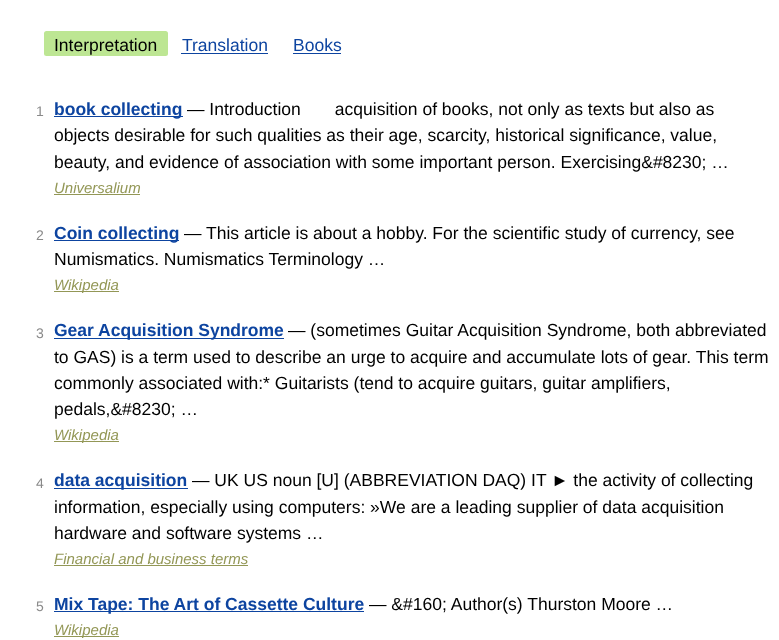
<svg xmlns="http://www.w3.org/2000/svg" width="779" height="640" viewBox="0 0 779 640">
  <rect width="100%" height="100%" fill="#fff"/>
  <rect x="44" y="31" width="124" height="25" rx="2.5" fill="#bde693"/>
  <path d="M181 53h87v1H181z" fill="#0d44a0"/>
  <path d="M293 53h48v1H293z" fill="#0d44a0"/>
  <path d="M54 116h129v1H54z" fill="#0d44a0"/>
  <path d="M54 194h86v1H54z" fill="#939756"/>
  <path d="M54 240h125v1H54z" fill="#0d44a0"/>
  <path d="M54 291h65v1H54z" fill="#939756"/>
  <path d="M54 338h230v1H54z" fill="#0d44a0"/>
  <path d="M54 441h65v1H54z" fill="#939756"/>
  <path d="M54 488h134v1H54z" fill="#0d44a0"/>
  <path d="M54 565h194v1H54z" fill="#939756"/>
  <path d="M54 611h310v1H54z" fill="#0d44a0"/>
  <path d="M54 636h65v1H54z" fill="#939756"/>
  <text x="54" y="51" font-family="Liberation Sans" font-size="17.5" fill="#000">Interpretation</text>
  <g font-family="Liberation Sans" font-size="17.5" fill="#0d44a0">
    <text x="182" y="51">Translation</text>
    <text x="293" y="51">Books</text>
  </g>
  <text x="36" y="116" font-family="Liberation Sans" font-size="14" fill="#898989">1</text>
  <text x="54" y="115" font-family="Liberation Sans" font-size="17.5" font-weight="bold" fill="#0d44a0">book collecting</text>
  <g font-family="Liberation Sans" font-size="17.5" fill="#000">
    <text x="187" y="115" xml:space="preserve">— Introduction       acquisition of books, not only as texts but also as</text>
    <text x="54" y="141">objects desirable for such qualities as their age, scarcity, historical significance, value,</text>
    <text x="54" y="168">beauty, and evidence of association with some important person. Exercising&amp;#8230; …</text>
  </g>
  <text x="54" y="193" font-family="Liberation Sans" font-size="15" font-style="italic" fill="#939756">Universalium</text>
  <text x="36" y="240" font-family="Liberation Sans" font-size="14" fill="#898989">2</text>
  <text x="54" y="239" font-family="Liberation Sans" font-size="17.5" font-weight="bold" fill="#0d44a0">Coin collecting</text>
  <g font-family="Liberation Sans" font-size="17.5" fill="#000">
    <text x="184" y="239">— This article is about a hobby. For the scientific study of currency, see</text>
    <text x="54" y="265">Numismatics. Numismatics Terminology …</text>
  </g>
  <text x="54" y="290" font-family="Liberation Sans" font-size="15" font-style="italic" fill="#939756">Wikipedia</text>
  <text x="36" y="338" font-family="Liberation Sans" font-size="14" fill="#898989">3</text>
  <text x="54" y="336" font-family="Liberation Sans" font-size="17.5" font-weight="bold" fill="#0d44a0">Gear Acquisition Syndrome</text>
  <g font-family="Liberation Sans" font-size="17.5" fill="#000">
    <text x="288" y="336">— (sometimes Guitar Acquisition Syndrome, both abbreviated</text>
    <text x="54" y="363">to GAS) is a term used to describe an urge to acquire and accumulate lots of gear. This term</text>
    <text x="54" y="389">commonly associated with:* Guitarists (tend to acquire guitars, guitar amplifiers,</text>
    <text x="54" y="415">pedals,&amp;#8230; …</text>
  </g>
  <text x="54" y="440" font-family="Liberation Sans" font-size="15" font-style="italic" fill="#939756">Wikipedia</text>
  <text x="36" y="488" font-family="Liberation Sans" font-size="14" fill="#898989">4</text>
  <text x="54" y="486" font-family="Liberation Sans" font-size="17.5" font-weight="bold" fill="#0d44a0">data acquisition</text>
  <g font-family="Liberation Sans" font-size="17.5" fill="#000">
    <text x="192" y="486">— UK US noun [U] (ABBREVIATION DAQ) IT ► the activity of collecting</text>
    <text x="54" y="513">information, especially using computers: »We are a leading supplier of data acquisition</text>
    <text x="54" y="539">hardware and software systems …</text>
  </g>
  <text x="54" y="564" font-family="Liberation Sans" font-size="15" font-style="italic" fill="#939756">Financial and business terms</text>
  <text x="36" y="611" font-family="Liberation Sans" font-size="14" fill="#898989">5</text>
  <text x="54" y="610" font-family="Liberation Sans" font-size="17.5" font-weight="bold" fill="#0d44a0">Mix Tape: The Art of Cassette Culture</text>
  <text x="369" y="610" font-family="Liberation Sans" font-size="17.5" fill="#000">— &amp;#160; Author(s) Thurston Moore …</text>
  <text x="54" y="635" font-family="Liberation Sans" font-size="15" font-style="italic" fill="#939756">Wikipedia</text>
</svg>
